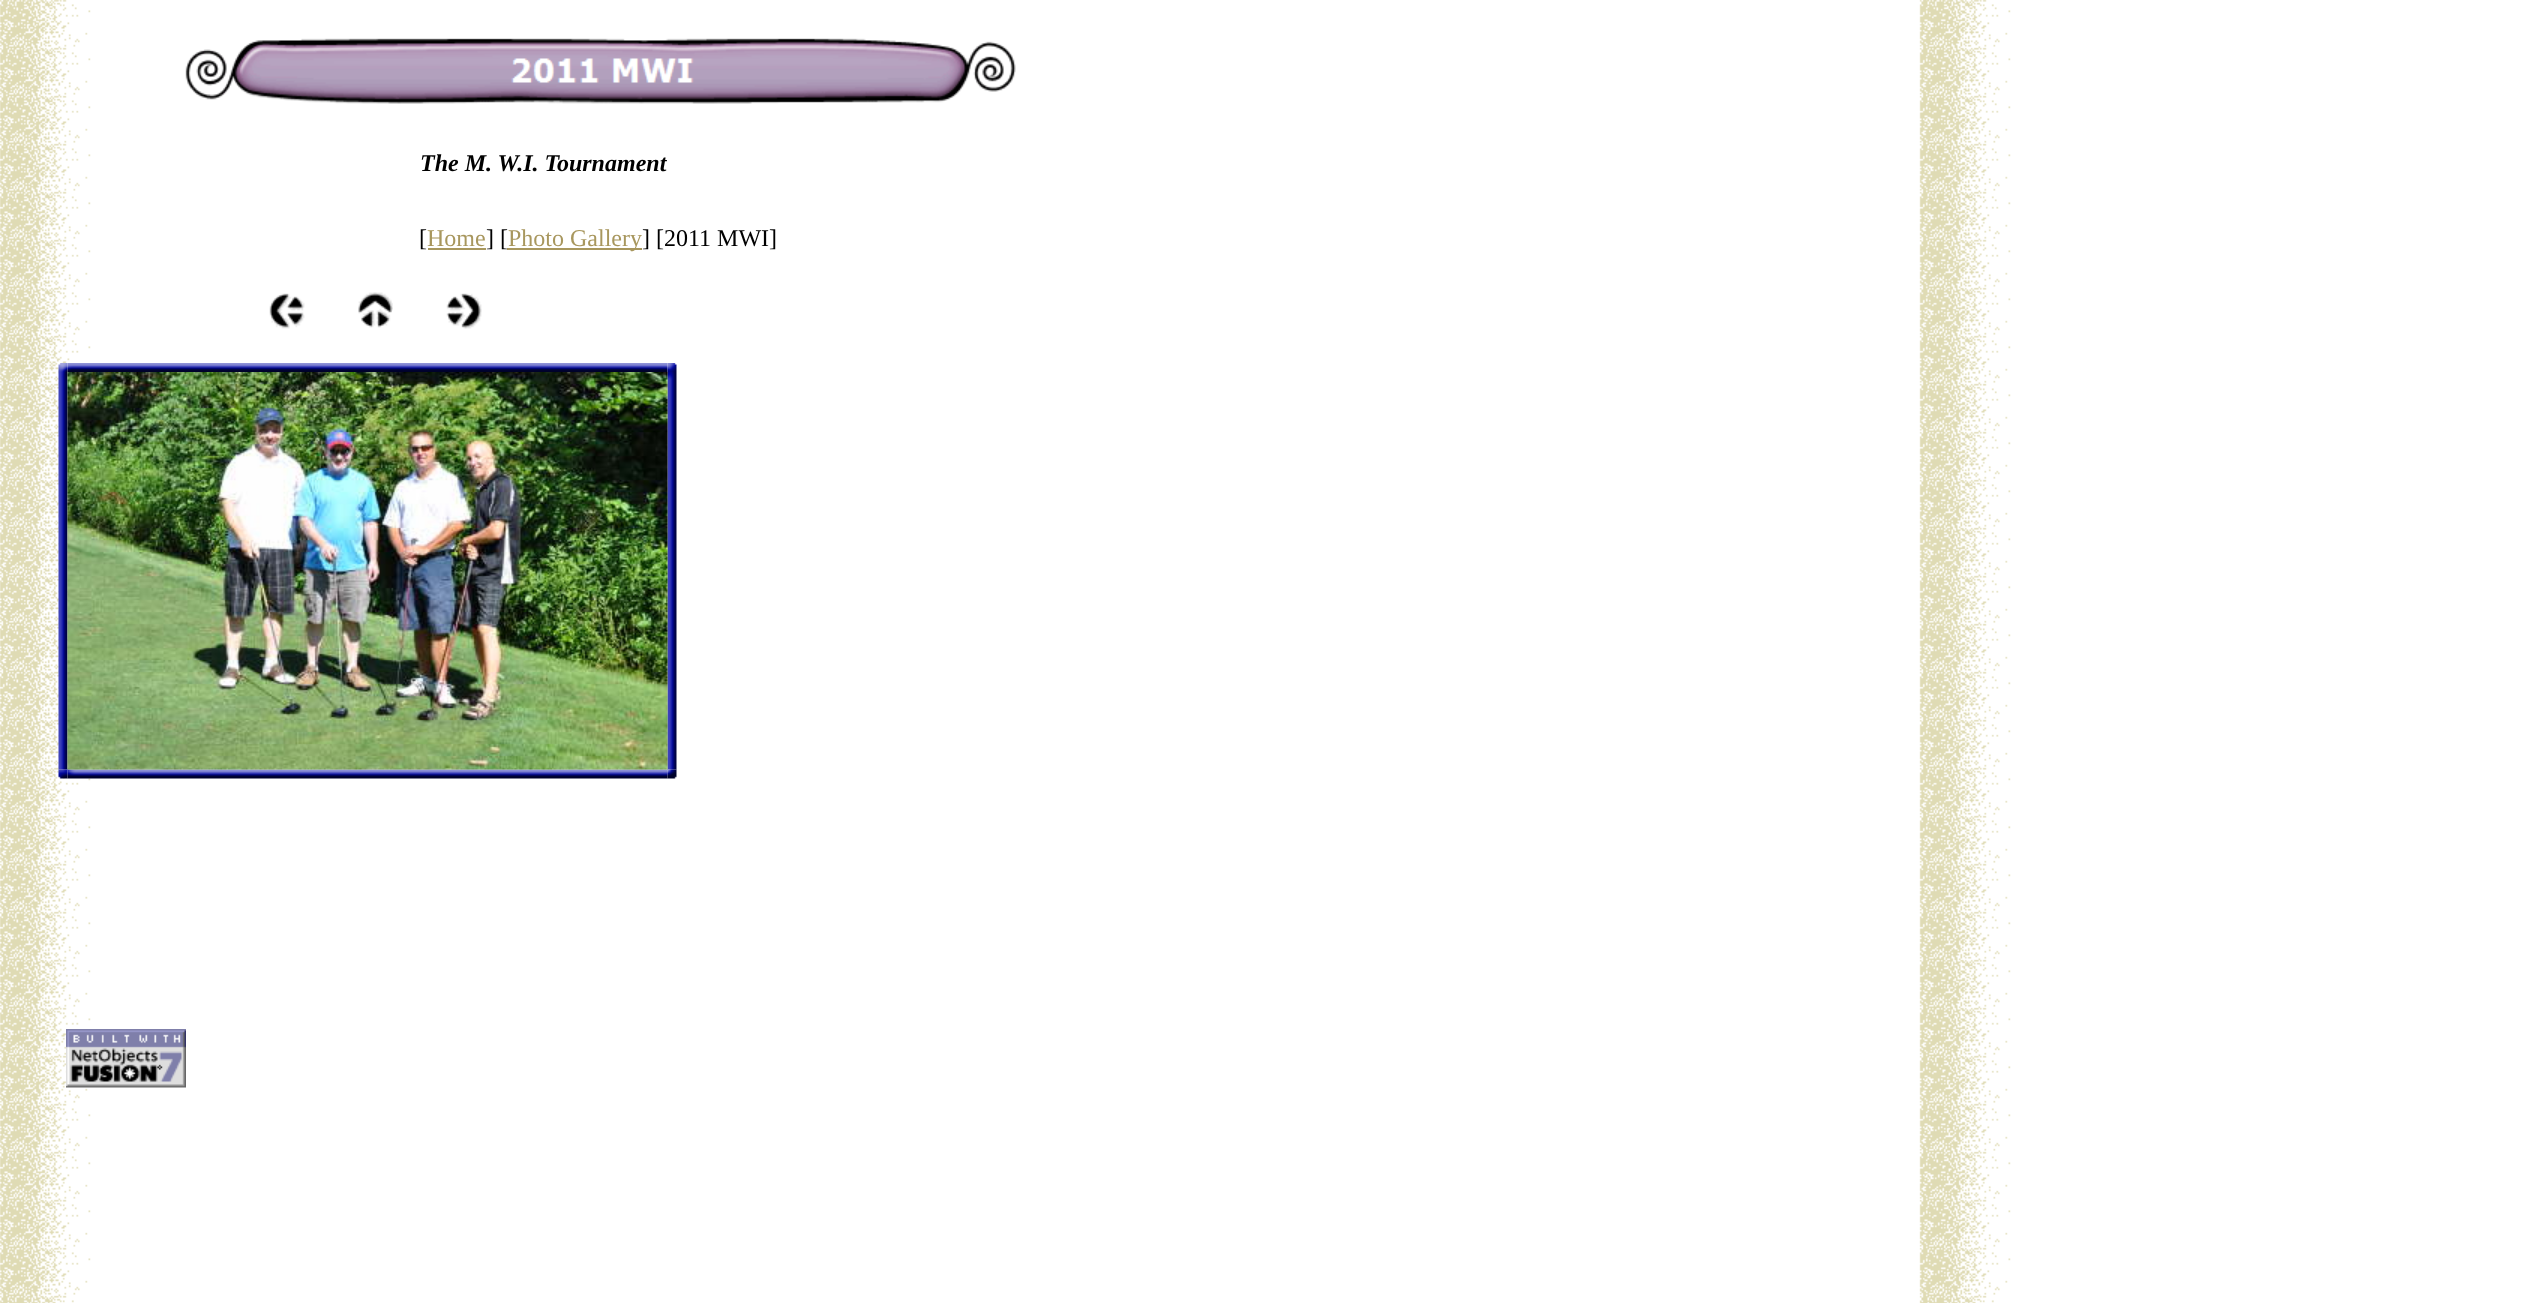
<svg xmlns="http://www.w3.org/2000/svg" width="2527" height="1303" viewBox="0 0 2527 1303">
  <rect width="100%" height="100%" fill="#fff"/>
  <image x="0" y="0" width="2011" height="1303" href="img/1.png"/>
  <image x="185" y="38" width="831" height="66" href="img/2.png"/>
  <path d="M428 248h58v2H428z" fill="#a8975e"/>
  <path d="M507 248h135v2H507z" fill="#a8975e"/>
  <image x="269" y="293" width="36" height="36" href="img/3.png"/>
  <image x="358" y="292" width="35" height="36" href="img/4.png"/>
  <image x="446" y="293" width="36" height="36" href="img/5.png"/>
  <image x="67" y="363" width="601" height="9" href="img/7.png"/>
  <image x="58" y="363" width="10" height="9" href="img/6.png"/>
  <image x="667" y="363" width="10" height="9" href="img/8.png"/>
  <image x="58" y="372" width="10" height="398" href="img/9.png"/>
  <path d="M68 372h600v398H68z" fill="#dedede"/>
  <image x="667" y="372" width="10" height="398" href="img/11.png"/>
  <image x="67" y="769" width="601" height="10" href="img/13.png"/>
  <image x="67" y="372" width="601" height="398" href="img/10.png"/>
  <image x="58" y="769" width="10" height="10" href="img/12.png"/>
  <image x="667" y="769" width="10" height="10" href="img/14.png"/>
  <image x="66" y="1029" width="120" height="59" href="img/15.png"/>
  <text x="420" y="171" font-family="Liberation Serif" font-size="24" font-weight="bold" font-style="italic" fill="#000">The M. W.I. Tournament</text>
  <text x="419" y="246" font-family="Liberation Serif" font-size="24" fill="#000">[</text>
  <text x="427" y="246" font-family="Liberation Serif" font-size="24" fill="#a8975e">Home</text>
  <text x="486" y="246" font-family="Liberation Serif" font-size="24" fill="#000">] [</text>
  <text x="508" y="246" font-family="Liberation Serif" font-size="24" fill="#a8975e">Photo Gallery</text>
  <text x="642" y="246" font-family="Liberation Serif" font-size="24" fill="#000">] [2011 MWI]</text>
</svg>
